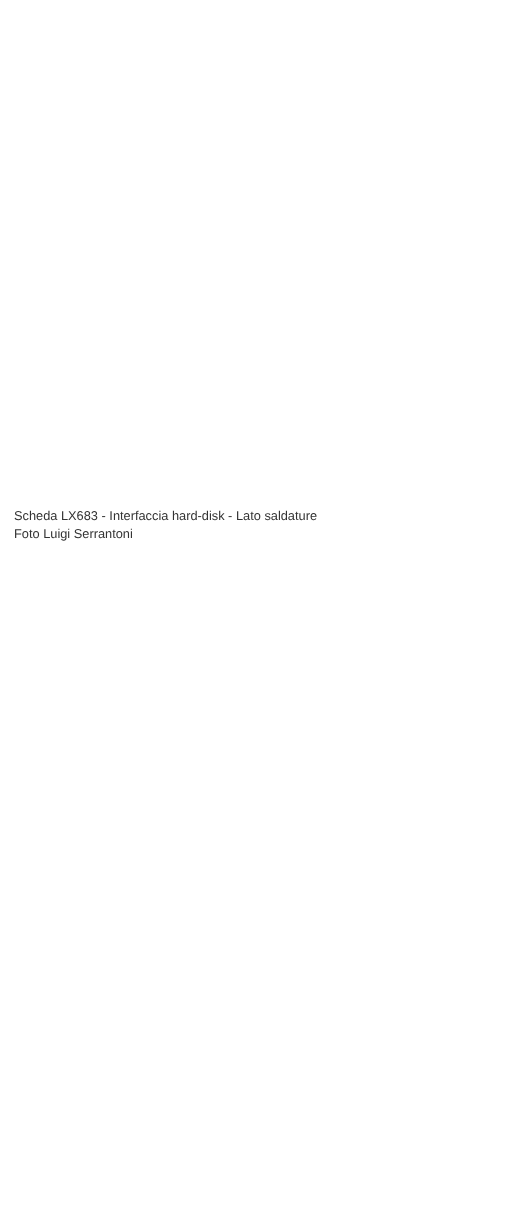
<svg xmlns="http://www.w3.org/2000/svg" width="517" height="1231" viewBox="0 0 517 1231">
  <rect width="100%" height="100%" fill="#fff"/>
  <g font-family="Liberation Sans" font-size="12.8" fill="#333">
    <text x="14" y="520">Scheda LX683 - Interfaccia hard-disk - Lato saldature</text>
    <text x="14" y="538">Foto Luigi Serrantoni</text>
  </g>
</svg>
